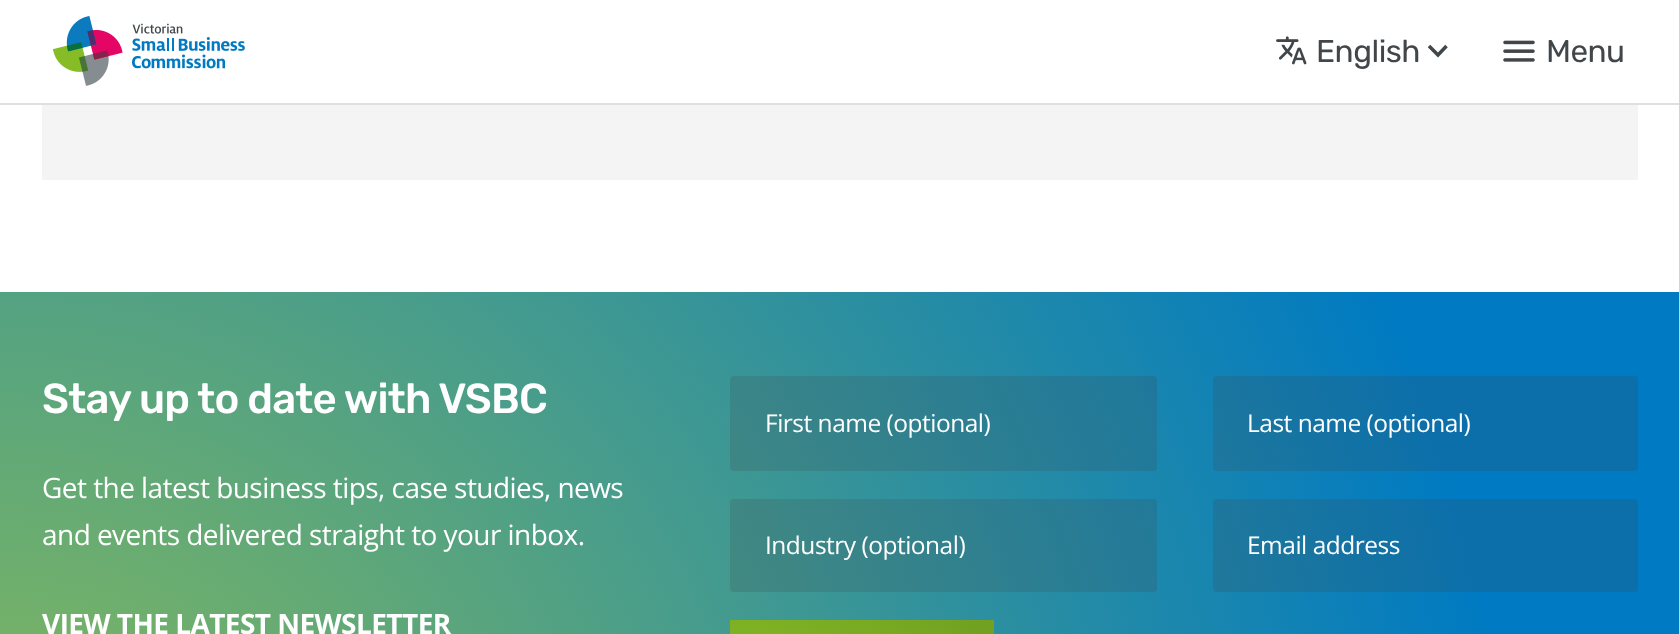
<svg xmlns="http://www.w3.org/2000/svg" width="1679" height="634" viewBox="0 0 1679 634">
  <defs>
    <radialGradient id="g1" gradientUnits="userSpaceOnUse" cx="0" cy="902" r="1511"><stop offset="0" stop-color="#8cbd57"/><stop offset="1" stop-color="#007ac2"/></radialGradient>
    <radialGradient id="g2" gradientUnits="userSpaceOnUse" cx="730" cy="742" r="273"><stop offset="0" stop-color="#86bc26"/><stop offset="1" stop-color="#72a121"/></radialGradient>
  </defs>
  <rect width="100%" height="100%" fill="#fff"/>
  <path d="M0 103h1679v2H0z" fill="#dfdfe2"/>
  <image x="53" y="16" width="192" height="70" href="img/1.png"/>
  <image x="1276" y="36" width="31" height="29" href="img/2.png"/>
  <path d="M1446.5 46L1438 55L1429 46" fill="none" stroke="#404649" stroke-width="3.5"/>
  <image x="1503" y="40" width="32" height="22" href="img/3.png"/>
  <path d="M42 105h1596v75H42z" fill="#f4f4f4"/>
  <path d="M0 292h1679v342H0z" fill="url(#g1)"/>
  <rect x="730" y="376" width="427" height="95" rx="4" fill="#40464933"/>
  <rect x="1213" y="376" width="425" height="95" rx="4" fill="#40464933"/>
  <rect x="730" y="499" width="427" height="93" rx="4" fill="#40464933"/>
  <rect x="1213" y="499" width="425" height="93" rx="4" fill="#40464933"/>
  <path d="M730 620h264v14H730z" fill="url(#g2)"/>
  <text x="1316" y="62" font-family="Rubik" font-size="31.5" letter-spacing="-0.5" fill="#404649">English</text>
  <text x="1546" y="62" font-family="Rubik" font-size="31.5" letter-spacing="-0.55" fill="#404649">Menu</text>
  <text x="42" y="413" font-family="Rubik" font-size="42" font-weight="500" letter-spacing="-0.8" fill="#fff">Stay up to date with VSBC</text>
  <g font-family="Open Sans" font-size="28" letter-spacing="-0.55" fill="#fff">
    <text x="42" y="498">Get the latest business tips, case studies, news</text>
    <text x="42" y="545">and events delivered straight to your inbox.</text>
  </g>
  <text x="42" y="634" font-family="Open Sans" font-size="28" font-weight="bold" letter-spacing="-0.55" fill="#fff">VIEW THE LATEST NEWSLETTER</text>
  <g font-family="Open Sans" font-size="24.5" letter-spacing="-0.5" fill="#fff">
    <text x="765" y="432">First name (optional)</text>
    <text x="1247" y="432">Last name (optional)</text>
    <text x="765" y="554">Industry (optional)</text>
    <text x="1247" y="554">Email address</text>
  </g>
</svg>
